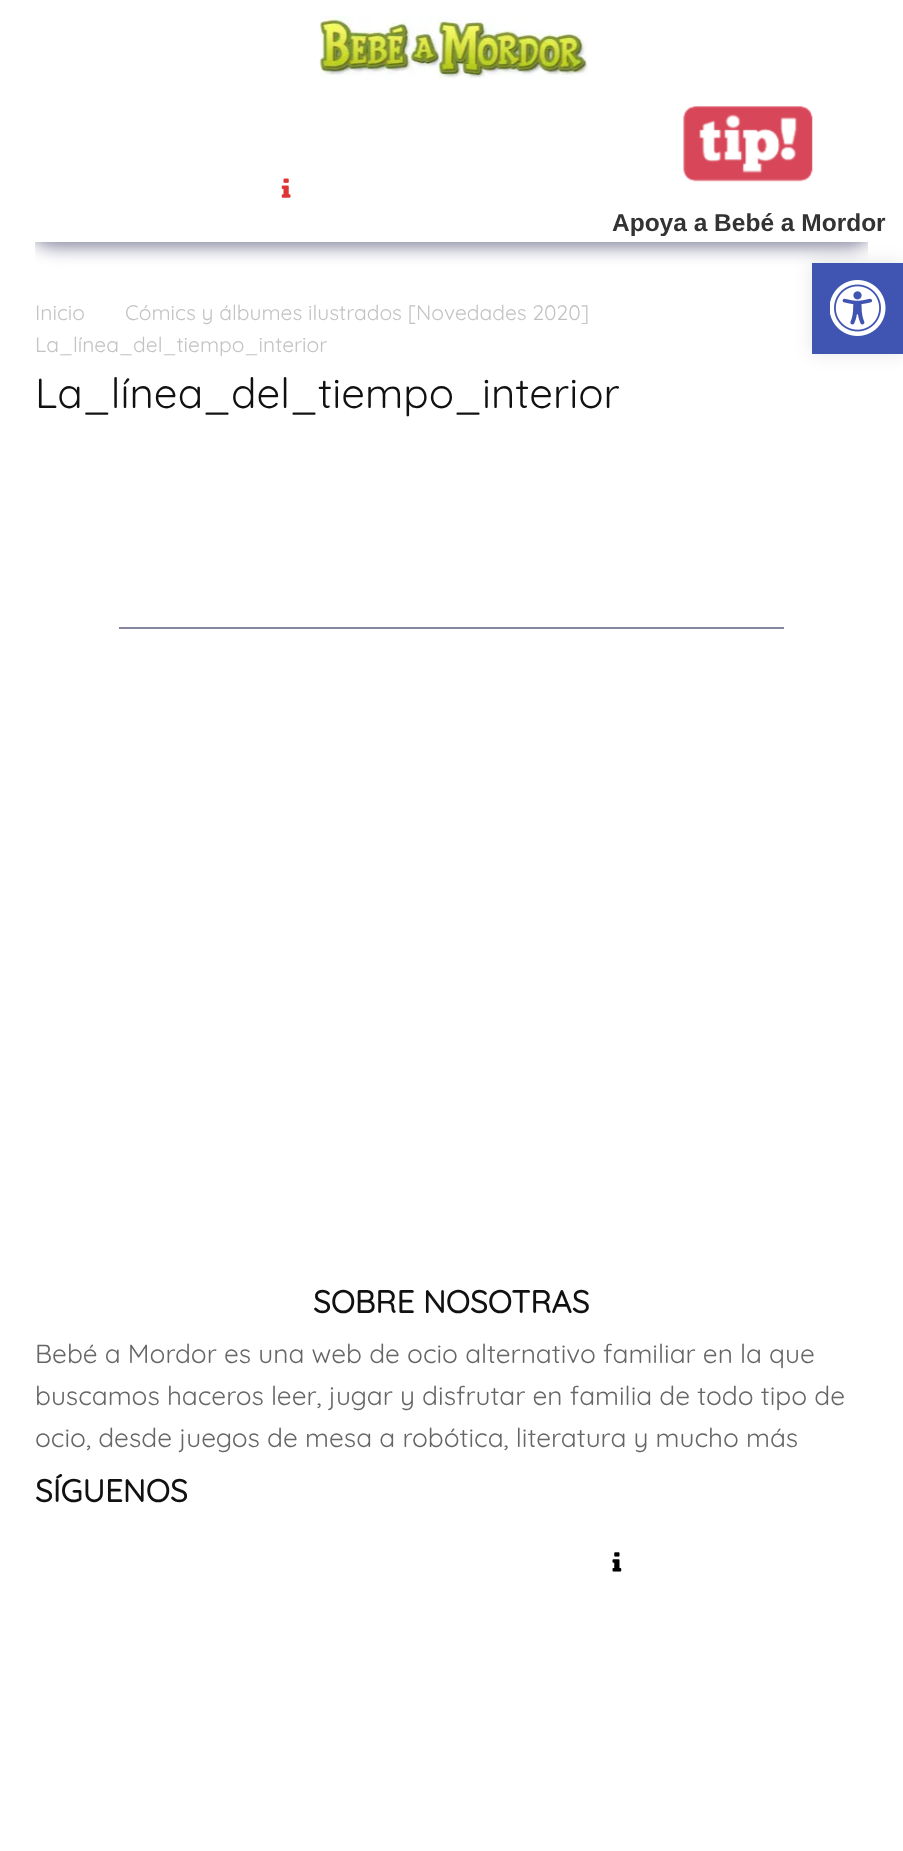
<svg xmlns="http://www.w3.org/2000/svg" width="903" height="1851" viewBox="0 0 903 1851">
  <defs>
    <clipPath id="clip1"><path d="M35 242h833v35H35z"/></clipPath>
  </defs>
  <rect width="100%" height="100%" fill="#fff"/>
  <image x="319" y="16" width="269" height="63" href="img/1.png"/>
  <image x="281" y="178" width="10" height="20" href="img/2.png"/>
  <image x="683" y="106" width="130" height="76" href="img/3.png"/>
  <g clip-path="url(#clip1)">
    <rect x="26" y="189" width="851" height="58" rx="29" fill="#84859e" filter="blur(9px)"/>
  </g>
  <path d="M119 627h665v2H119z" fill="#84859e"/>
  <image x="612" y="1552" width="10" height="20" href="img/4.png"/>
  <path d="M812 263h91v91H812z" fill="#0000001a" filter="blur(9px)"/>
  <path d="M812 263h91v91H812z" fill="#4054b2"/>
  <image x="830" y="280" width="56" height="56" href="img/5.png"/>
  <text x="612" y="231" font-family="Liberation Sans" font-size="24.5" font-weight="bold" fill="#333">Apoya a Bebé a Mordor</text>
  <g font-family="Quicksand" font-size="21" font-weight="300" fill="#c3c3c3">
    <text x="35" y="320">Inicio</text>
    <text x="125" y="320">Cómics y álbumes ilustrados [Novedades 2020]</text>
    <text x="35" y="352">La_línea_del_tiempo_interior</text>
  </g>
  <text x="35" y="408" font-family="Quicksand" font-size="42" font-weight="300" fill="#111">La_línea_del_tiempo_interior</text>
  <text x="313" y="1313" font-family="Quicksand" font-size="31.5" font-weight="bold" fill="#111">SOBRE NOSOTRAS</text>
  <g font-family="Quicksand" font-size="26.25" font-weight="300" fill="#666">
    <text x="35" y="1363">Bebé a Mordor es una web de ocio alternativo familiar en la que</text>
    <text x="35" y="1405">buscamos haceros leer, jugar y disfrutar en familia de todo tipo de</text>
    <text x="35" y="1447">ocio, desde juegos de mesa a robótica, literatura y mucho más</text>
  </g>
  <text x="35" y="1502" font-family="Quicksand" font-size="31.5" font-weight="bold" fill="#111">SÍGUENOS</text>
</svg>
